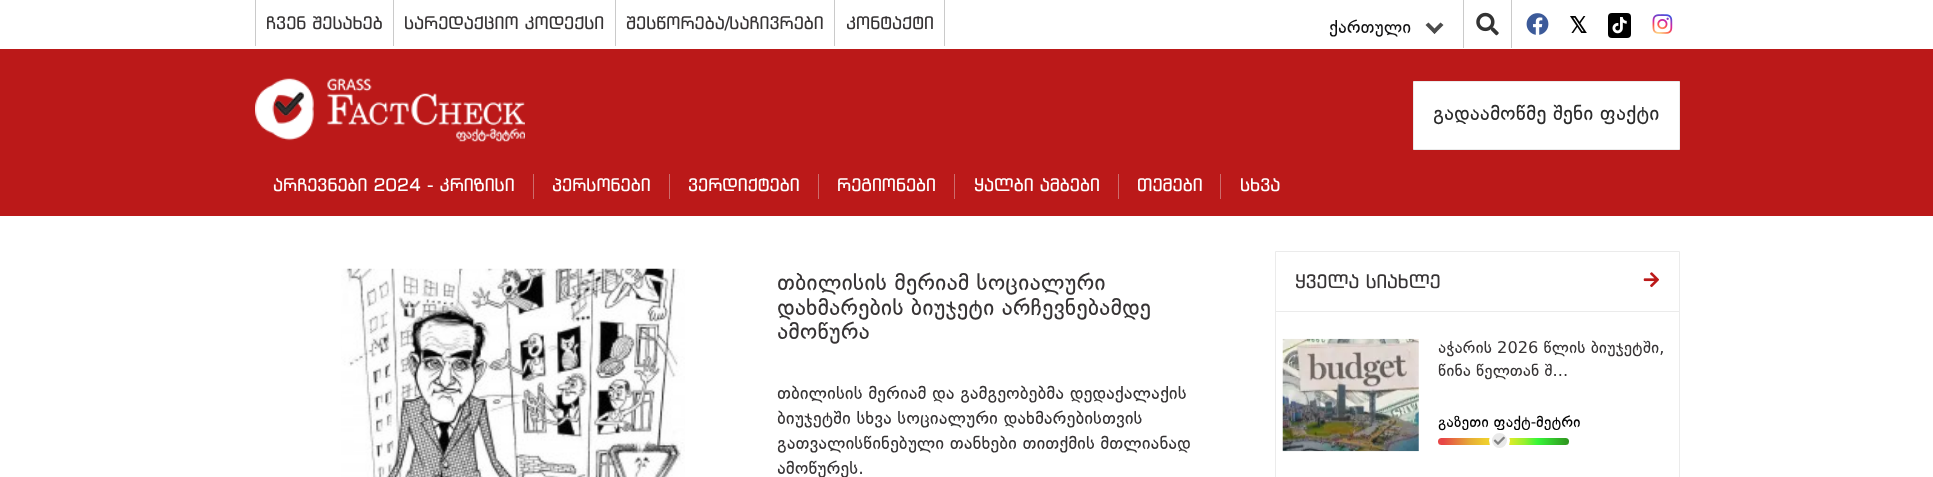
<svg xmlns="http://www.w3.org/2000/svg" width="1933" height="477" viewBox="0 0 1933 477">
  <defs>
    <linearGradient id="g1" gradientUnits="userSpaceOnUse" x1="1438" y1="441" x2="1569" y2="441"><stop offset="0.04" stop-color="#e74646"/><stop offset="0.24" stop-color="#e6aa37"/><stop offset="0.35" stop-color="#eeca2f"/><stop offset="0.51" stop-color="#f6ea26"/><stop offset="0.66" stop-color="#97f02f"/><stop offset="0.76" stop-color="#38f638"/><stop offset="1" stop-color="#2f921f"/></linearGradient>
  </defs>
  <rect width="100%" height="100%" fill="#fff"/>
  <path d="M393 0h1v46H393z" fill="#cacaca"/>
  <path d="M255 0h1v46H255z" fill="#cacaca"/>
  <path d="M615 0h1v46H615z" fill="#cacaca"/>
  <path d="M834 0h1v46H834z" fill="#cacaca"/>
  <path d="M944 0h1v46H944z" fill="#cacaca"/>
  <path d="M1434.5 34L1425.5 25L1428.5 22.5L1437 31Z" fill="#4c4c4c"/>
  <path d="M1434.5 34L1432 31L1440.5 22.5L1443.5 25Z" fill="#4c4c4c"/>
  <path d="M1511 0h1v48H1511z" fill="#cacaca"/>
  <path d="M1463 0h1v48H1463z" fill="#cacaca"/>
  <image x="1476" y="12" width="23" height="24" href="img/1.png"/>
  <image x="1526" y="13" width="23" height="22" href="img/2.png"/>
  <rect x="1608" y="13" width="23" height="25" rx="4" fill="#000"/>
  <image x="1612" y="17" width="15" height="17" href="img/3.png"/>
  <image x="1652" y="14" width="21" height="20" href="img/4.png"/>
  <path d="M0 49h1933v167H0z" fill="#bb1919"/>
  <image x="255" y="78" width="270" height="64" href="img/5.png"/>
  <path d="M1413.5 81.5h266v68H1413.5z" fill="#fff" stroke="#ebebeb"/>
  <path d="M533 174h1v25H533z" fill="#cd6c6c"/>
  <path d="M669 174h1v25H669z" fill="#cd6c6c"/>
  <path d="M818 174h1v25H818z" fill="#cd6c6c"/>
  <path d="M954 174h1v25H954z" fill="#cd6c6c"/>
  <path d="M1118 174h1v25H1118z" fill="#cd6c6c"/>
  <path d="M1220 174h1v25H1220z" fill="#cd6c6c"/>
  <image x="341" y="268" width="344" height="209" href="img/6.png"/>
  <path d="M1275.5 251.5h404v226H1275.5z" fill="none" stroke="#ebebeb"/>
  <path d="M1276 311h403v1H1276z" fill="#ebebeb"/>
  <image x="1643" y="272" width="16" height="16" href="img/7.png"/>
  <image x="1282" y="338" width="137" height="114" href="img/8.png"/>
  <rect x="1438" y="438" width="131" height="7" rx="3.5" fill="url(#g1)"/>
  <g font-family="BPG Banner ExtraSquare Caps" font-size="17.5" fill="#373435">
    <text x="266" y="29">ჩვენ შესახებ</text>
    <text x="404" y="29">სარედაქციო კოდექსი</text>
    <text x="626" y="29">შესწორება/საჩივრები</text>
    <text x="846" y="29">კონტაქტი</text>
  </g>
  <text x="1329" y="33" font-family="DejaVu Sans" font-size="17.5" fill="#111112">ქართული</text>
  <text x="1569" y="33" font-family="DejaVu Sans" font-size="22.5" font-weight="bold" fill="#000">𝕏</text>
  <text x="1433" y="120" font-family="DejaVu Sans" font-size="20" fill="#2c2c2c">გადაამოწმე შენი ფაქტი</text>
  <g font-family="BPG Banner ExtraSquare Caps" font-size="17.5" fill="#fff">
    <text x="273" y="191">არჩევნები 2024 - კრიზისი</text>
    <text x="552" y="191">პერსონები</text>
    <text x="688" y="191">ვერდიქტები</text>
    <text x="837" y="191">რეგიონები</text>
    <text x="974" y="191">ყალბი ამბები</text>
    <text x="1137" y="191">თემები</text>
    <text x="1240" y="191">სხვა</text>
  </g>
  <g font-family="DejaVu Sans" font-size="22.5" fill="#373435">
    <text x="777" y="290">თბილისის მერიამ სოციალური</text>
    <text x="777" y="315">დახმარების ბიუჯეტი არჩევნებამდე</text>
    <text x="777" y="339">ამოწურა</text>
  </g>
  <g font-family="DejaVu Sans" font-size="17.5" fill="#373435">
    <text x="777" y="399">თბილისის მერიამ და გამგეობებმა დედაქალაქის</text>
    <text x="777" y="424">ბიუჯეტში სხვა სოციალური დახმარებისთვის</text>
    <text x="777" y="449">გათვალისწინებული თანხები თითქმის მთლიანად</text>
    <text x="777" y="474">ამოწურეს.</text>
  </g>
  <text x="1295" y="288" font-family="BPG Banner ExtraSquare Caps" font-size="18.75" fill="#373435">ყველა სიახლე</text>
  <g font-family="DejaVu Sans" font-size="16.25" fill="#373435">
    <text x="1438" y="353">აჭარის 2026 წლის ბიუჯეტში,</text>
    <text x="1438" y="376">წინა წელთან შ...</text>
  </g>
  <text x="1438" y="427" font-family="DejaVu Sans" font-size="15" fill="#000">გაზეთი ფაქტ-მეტრი</text>
  <circle cx="1499.5" cy="440.5" r="9" fill="#e9e9e9" stroke="#fff" stroke-width="3"/>
  <image x="1493" y="436" width="12" height="9" href="img/9.png"/>
</svg>
